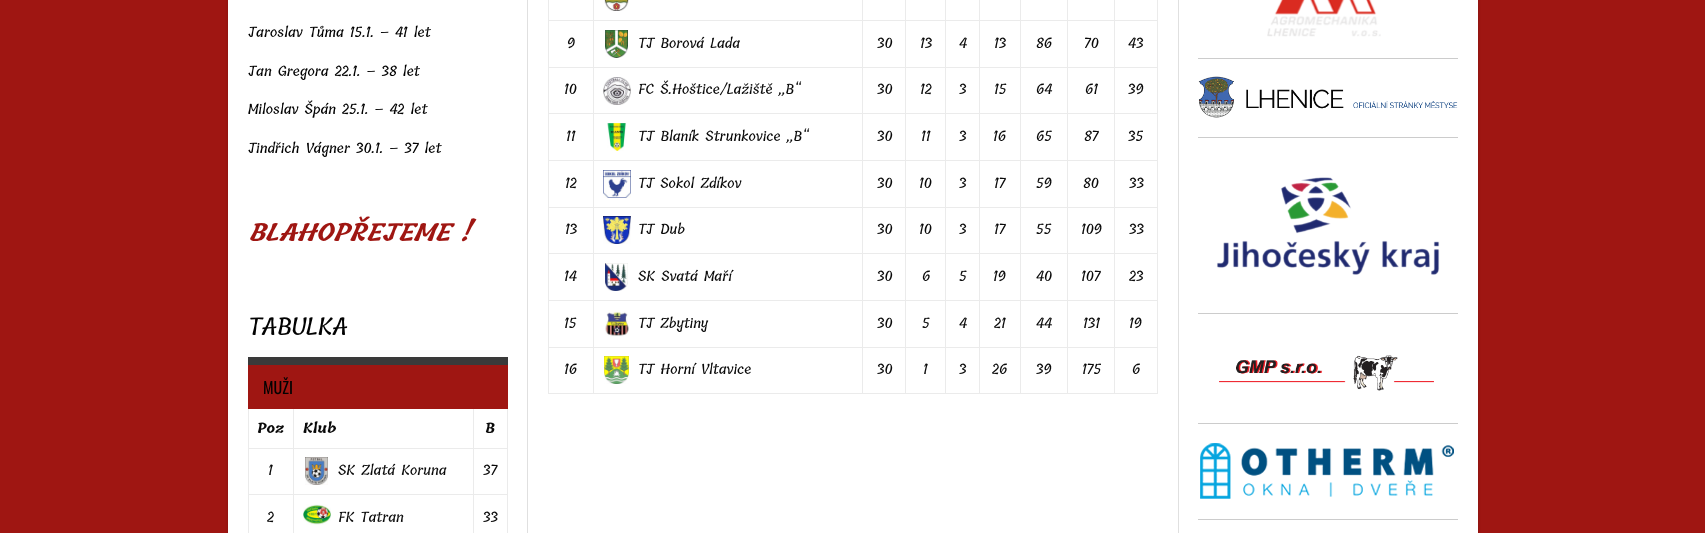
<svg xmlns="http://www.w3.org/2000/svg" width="1705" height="533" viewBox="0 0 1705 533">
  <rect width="100%" height="100%" fill="#9f1612"/>
  <path d="M228 -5h1250v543H228z" fill="#00000033" filter="blur(1.5px)"/>
  <path d="M228 0h1250v533H228z" fill="#fff"/>
  <path d="M527 0h1v533H527z" fill="#e0e0e0"/>
  <path d="M507 408h1v125H507z" fill="#ebebeb"/>
  <path d="M248 408h1v125H248z" fill="#ebebeb"/>
  <path d="M473 448h35v1H473z" fill="#ebebeb"/>
  <path d="M473 494h35v1H473z" fill="#ebebeb"/>
  <path d="M473 494h1v39H473z" fill="#ebebeb"/>
  <path d="M293 494h181v1H293z" fill="#ebebeb"/>
  <path d="M473 448h1v47H473z" fill="#ebebeb"/>
  <path d="M293 448h181v1H293z" fill="#ebebeb"/>
  <path d="M293 494h1v39H293z" fill="#ebebeb"/>
  <path d="M248 494h46v1H248z" fill="#ebebeb"/>
  <path d="M293 448h1v47H293z" fill="#ebebeb"/>
  <path d="M248 448h46v1H248z" fill="#ebebeb"/>
  <path d="M293 408h1v41H293z" fill="#ebebeb"/>
  <path d="M473 408h1v41H473z" fill="#ebebeb"/>
  <path d="M248 365h260v44H248z" fill="#9f1612"/>
  <path d="M248 357h260v8H248z" fill="#3a3a3a"/>
  <image x="305" y="457" width="23" height="28" href="img/1.png"/>
  <image x="303" y="504" width="28" height="21" href="img/2.png"/>
  <path d="M1157 0h1v394H1157z" fill="#ebebeb"/>
  <path d="M548 393h610v1H548z" fill="#ebebeb"/>
  <path d="M548 0h1v394H548z" fill="#ebebeb"/>
  <path d="M1114 20h44v1H1114z" fill="#ebebeb"/>
  <path d="M1114 67h44v1H1114z" fill="#ebebeb"/>
  <path d="M1114 113h44v1H1114z" fill="#ebebeb"/>
  <path d="M1114 160h44v1H1114z" fill="#ebebeb"/>
  <path d="M1114 207h44v1H1114z" fill="#ebebeb"/>
  <path d="M1114 253h44v1H1114z" fill="#ebebeb"/>
  <path d="M1114 300h44v1H1114z" fill="#ebebeb"/>
  <path d="M1114 347h44v1H1114z" fill="#ebebeb"/>
  <path d="M1114 347h1v47H1114z" fill="#ebebeb"/>
  <path d="M1067 347h48v1H1067z" fill="#ebebeb"/>
  <path d="M1114 300h1v48H1114z" fill="#ebebeb"/>
  <path d="M1067 300h48v1H1067z" fill="#ebebeb"/>
  <path d="M1114 253h1v48H1114z" fill="#ebebeb"/>
  <path d="M1067 253h48v1H1067z" fill="#ebebeb"/>
  <path d="M1114 207h1v47H1114z" fill="#ebebeb"/>
  <path d="M1067 207h48v1H1067z" fill="#ebebeb"/>
  <path d="M1114 160h1v48H1114z" fill="#ebebeb"/>
  <path d="M1067 160h48v1H1067z" fill="#ebebeb"/>
  <path d="M1114 113h1v48H1114z" fill="#ebebeb"/>
  <path d="M1067 113h48v1H1067z" fill="#ebebeb"/>
  <path d="M1114 67h1v47H1114z" fill="#ebebeb"/>
  <path d="M1067 67h48v1H1067z" fill="#ebebeb"/>
  <path d="M1114 20h1v48H1114z" fill="#ebebeb"/>
  <path d="M1067 20h48v1H1067z" fill="#ebebeb"/>
  <path d="M1067 347h1v47H1067z" fill="#ebebeb"/>
  <path d="M1020 347h48v1H1020z" fill="#ebebeb"/>
  <path d="M1067 300h1v48H1067z" fill="#ebebeb"/>
  <path d="M1020 300h48v1H1020z" fill="#ebebeb"/>
  <path d="M1067 253h1v48H1067z" fill="#ebebeb"/>
  <path d="M1020 253h48v1H1020z" fill="#ebebeb"/>
  <path d="M1067 207h1v47H1067z" fill="#ebebeb"/>
  <path d="M1020 207h48v1H1020z" fill="#ebebeb"/>
  <path d="M1067 160h1v48H1067z" fill="#ebebeb"/>
  <path d="M1020 160h48v1H1020z" fill="#ebebeb"/>
  <path d="M1067 113h1v48H1067z" fill="#ebebeb"/>
  <path d="M1020 113h48v1H1020z" fill="#ebebeb"/>
  <path d="M1067 67h1v47H1067z" fill="#ebebeb"/>
  <path d="M1020 67h48v1H1020z" fill="#ebebeb"/>
  <path d="M1067 20h1v48H1067z" fill="#ebebeb"/>
  <path d="M1020 20h48v1H1020z" fill="#ebebeb"/>
  <path d="M1020 347h1v47H1020z" fill="#ebebeb"/>
  <path d="M979 347h42v1H979z" fill="#ebebeb"/>
  <path d="M1020 300h1v48H1020z" fill="#ebebeb"/>
  <path d="M979 300h42v1H979z" fill="#ebebeb"/>
  <path d="M1020 253h1v48H1020z" fill="#ebebeb"/>
  <path d="M979 253h42v1H979z" fill="#ebebeb"/>
  <path d="M1020 207h1v47H1020z" fill="#ebebeb"/>
  <path d="M979 207h42v1H979z" fill="#ebebeb"/>
  <path d="M1020 160h1v48H1020z" fill="#ebebeb"/>
  <path d="M979 160h42v1H979z" fill="#ebebeb"/>
  <path d="M1020 113h1v48H1020z" fill="#ebebeb"/>
  <path d="M979 113h42v1H979z" fill="#ebebeb"/>
  <path d="M1020 67h1v47H1020z" fill="#ebebeb"/>
  <path d="M979 67h42v1H979z" fill="#ebebeb"/>
  <path d="M1020 20h1v48H1020z" fill="#ebebeb"/>
  <path d="M979 20h42v1H979z" fill="#ebebeb"/>
  <path d="M979 347h1v47H979z" fill="#ebebeb"/>
  <path d="M945 347h35v1H945z" fill="#ebebeb"/>
  <path d="M979 300h1v48H979z" fill="#ebebeb"/>
  <path d="M945 300h35v1H945z" fill="#ebebeb"/>
  <path d="M979 253h1v48H979z" fill="#ebebeb"/>
  <path d="M945 253h35v1H945z" fill="#ebebeb"/>
  <path d="M979 207h1v47H979z" fill="#ebebeb"/>
  <path d="M945 207h35v1H945z" fill="#ebebeb"/>
  <path d="M979 160h1v48H979z" fill="#ebebeb"/>
  <path d="M945 160h35v1H945z" fill="#ebebeb"/>
  <path d="M979 113h1v48H979z" fill="#ebebeb"/>
  <path d="M945 113h35v1H945z" fill="#ebebeb"/>
  <path d="M979 67h1v47H979z" fill="#ebebeb"/>
  <path d="M945 67h35v1H945z" fill="#ebebeb"/>
  <path d="M979 20h1v48H979z" fill="#ebebeb"/>
  <path d="M945 20h35v1H945z" fill="#ebebeb"/>
  <path d="M945 347h1v47H945z" fill="#ebebeb"/>
  <path d="M905 347h41v1H905z" fill="#ebebeb"/>
  <path d="M945 300h1v48H945z" fill="#ebebeb"/>
  <path d="M905 300h41v1H905z" fill="#ebebeb"/>
  <path d="M945 253h1v48H945z" fill="#ebebeb"/>
  <path d="M905 253h41v1H905z" fill="#ebebeb"/>
  <path d="M945 207h1v47H945z" fill="#ebebeb"/>
  <path d="M905 207h41v1H905z" fill="#ebebeb"/>
  <path d="M945 160h1v48H945z" fill="#ebebeb"/>
  <path d="M905 160h41v1H905z" fill="#ebebeb"/>
  <path d="M945 113h1v48H945z" fill="#ebebeb"/>
  <path d="M905 113h41v1H905z" fill="#ebebeb"/>
  <path d="M945 67h1v47H945z" fill="#ebebeb"/>
  <path d="M905 67h41v1H905z" fill="#ebebeb"/>
  <path d="M945 20h1v48H945z" fill="#ebebeb"/>
  <path d="M905 20h41v1H905z" fill="#ebebeb"/>
  <path d="M905 347h1v47H905z" fill="#ebebeb"/>
  <path d="M862 347h44v1H862z" fill="#ebebeb"/>
  <path d="M905 300h1v48H905z" fill="#ebebeb"/>
  <path d="M862 300h44v1H862z" fill="#ebebeb"/>
  <path d="M905 253h1v48H905z" fill="#ebebeb"/>
  <path d="M862 253h44v1H862z" fill="#ebebeb"/>
  <path d="M905 207h1v47H905z" fill="#ebebeb"/>
  <path d="M862 207h44v1H862z" fill="#ebebeb"/>
  <path d="M905 160h1v48H905z" fill="#ebebeb"/>
  <path d="M862 160h44v1H862z" fill="#ebebeb"/>
  <path d="M905 113h1v48H905z" fill="#ebebeb"/>
  <path d="M862 113h44v1H862z" fill="#ebebeb"/>
  <path d="M905 67h1v47H905z" fill="#ebebeb"/>
  <path d="M862 67h44v1H862z" fill="#ebebeb"/>
  <path d="M905 20h1v48H905z" fill="#ebebeb"/>
  <path d="M862 20h44v1H862z" fill="#ebebeb"/>
  <path d="M862 347h1v47H862z" fill="#ebebeb"/>
  <path d="M593 347h270v1H593z" fill="#ebebeb"/>
  <path d="M862 300h1v48H862z" fill="#ebebeb"/>
  <path d="M593 300h270v1H593z" fill="#ebebeb"/>
  <path d="M862 253h1v48H862z" fill="#ebebeb"/>
  <path d="M593 253h270v1H593z" fill="#ebebeb"/>
  <path d="M862 207h1v47H862z" fill="#ebebeb"/>
  <path d="M593 207h270v1H593z" fill="#ebebeb"/>
  <path d="M862 160h1v48H862z" fill="#ebebeb"/>
  <path d="M593 160h270v1H593z" fill="#ebebeb"/>
  <path d="M862 113h1v48H862z" fill="#ebebeb"/>
  <path d="M593 113h270v1H593z" fill="#ebebeb"/>
  <path d="M862 67h1v47H862z" fill="#ebebeb"/>
  <path d="M593 67h270v1H593z" fill="#ebebeb"/>
  <path d="M862 20h1v48H862z" fill="#ebebeb"/>
  <path d="M593 20h270v1H593z" fill="#ebebeb"/>
  <path d="M593 347h1v47H593z" fill="#ebebeb"/>
  <path d="M548 347h46v1H548z" fill="#ebebeb"/>
  <path d="M593 300h1v48H593z" fill="#ebebeb"/>
  <path d="M548 300h46v1H548z" fill="#ebebeb"/>
  <path d="M593 253h1v48H593z" fill="#ebebeb"/>
  <path d="M548 253h46v1H548z" fill="#ebebeb"/>
  <path d="M593 207h1v47H593z" fill="#ebebeb"/>
  <path d="M548 207h46v1H548z" fill="#ebebeb"/>
  <path d="M593 160h1v48H593z" fill="#ebebeb"/>
  <path d="M548 160h46v1H548z" fill="#ebebeb"/>
  <path d="M593 113h1v48H593z" fill="#ebebeb"/>
  <path d="M548 113h46v1H548z" fill="#ebebeb"/>
  <path d="M593 67h1v47H593z" fill="#ebebeb"/>
  <path d="M548 67h46v1H548z" fill="#ebebeb"/>
  <path d="M593 20h1v48H593z" fill="#ebebeb"/>
  <path d="M548 20h46v1H548z" fill="#ebebeb"/>
  <path d="M593 0h1v21H593z" fill="#ebebeb"/>
  <image x="604" y="0" width="25" height="11" href="img/3.png"/>
  <path d="M862 0h1v21H862z" fill="#ebebeb"/>
  <path d="M905 0h1v21H905z" fill="#ebebeb"/>
  <path d="M945 0h1v21H945z" fill="#ebebeb"/>
  <path d="M979 0h1v21H979z" fill="#ebebeb"/>
  <path d="M1020 0h1v21H1020z" fill="#ebebeb"/>
  <path d="M1067 0h1v21H1067z" fill="#ebebeb"/>
  <path d="M1114 0h1v21H1114z" fill="#ebebeb"/>
  <image x="605" y="30" width="23" height="28" href="img/4.png"/>
  <image x="603" y="77" width="28" height="28" href="img/5.png"/>
  <image x="607" y="123" width="20" height="28" href="img/6.png"/>
  <image x="603" y="170" width="28" height="28" href="img/7.png"/>
  <image x="603" y="216" width="28" height="28" href="img/8.png"/>
  <image x="605" y="263" width="23" height="28" href="img/9.png"/>
  <image x="605" y="310" width="24" height="27" href="img/10.png"/>
  <image x="604" y="356" width="25" height="28" href="img/11.png"/>
  <path d="M1178 0h1v533H1178z" fill="#e0e0e0"/>
  <image x="1267" y="0" width="114" height="37" href="img/12.png"/>
  <path d="M1198 58h260v1H1198z" fill="#ccc"/>
  <image x="1198" y="76" width="260" height="42" href="img/13.png"/>
  <path d="M1198 137h260v1H1198z" fill="#ccc"/>
  <image x="1216" y="177" width="224" height="98" href="img/14.png"/>
  <path d="M1198 313h260v1H1198z" fill="#ccc"/>
  <image x="1219" y="355" width="215" height="36" href="img/15.png"/>
  <path d="M1198 423h260v1H1198z" fill="#ccc"/>
  <image x="1200" y="443" width="254" height="56" href="img/16.png"/>
  <path d="M1198 519h260v1H1198z" fill="#ccc"/>
  <g font-family="Tillana" font-size="14" font-weight="500" fill="#020202">
    <text x="248" y="37">Jaroslav Tůma 15.1. – 41 let</text>
    <text x="248" y="76">Jan Gregora 22.1. – 38 let</text>
    <text x="248" y="114">Miloslav Špán 25.1. – 42 let</text>
    <text x="248" y="153">Jindřich Vágner 30.1. – 37 let</text>
  </g>
  <text x="248" y="241" font-family="Tillana" font-size="24" font-weight="bold" font-style="italic" fill="#9f1612">BLAHOPŘEJEME !</text>
  <text x="248" y="335" font-family="Tillana" font-size="24" font-weight="500" fill="#020202">TABULKA</text>
  <text x="263" y="394" font-family="Oswald" font-size="16" fill="#020202">MUŽI</text>
  <g font-family="Tillana" font-size="14" font-weight="bold" fill="#0a0a0a">
    <text x="257" y="433">Poz</text>
    <text x="303" y="433">Klub</text>
    <text x="485" y="433">B</text>
  </g>
  <g font-family="Tillana" font-size="14" font-weight="500" fill="#0a0a0a">
    <text x="268" y="475">1</text>
    <text x="338" y="475">SK Zlatá Koruna</text>
    <text x="483" y="475">37</text>
    <text x="267" y="522">2</text>
    <text x="338" y="522">FK Tatran</text>
    <text x="483" y="522">33</text>
    <text x="567" y="48">9</text>
    <text x="638" y="48">TJ Borová Lada</text>
    <text x="877" y="48">30</text>
    <text x="920" y="48">13</text>
    <text x="959" y="48">4</text>
    <text x="994" y="48">13</text>
    <text x="1036" y="48">86</text>
    <text x="1084" y="48">70</text>
    <text x="1128" y="48">43</text>
    <text x="564" y="94">10</text>
    <text x="638" y="94">FC Š.Hoštice/Lažiště „B“</text>
    <text x="877" y="94">30</text>
    <text x="920" y="94">12</text>
    <text x="959" y="94">3</text>
    <text x="994" y="94">15</text>
    <text x="1036" y="94">64</text>
    <text x="1085" y="94">61</text>
    <text x="1128" y="94">39</text>
    <text x="566" y="141">11</text>
    <text x="638" y="141">TJ Blaník Strunkovice „B“</text>
    <text x="877" y="141">30</text>
    <text x="921" y="141">11</text>
    <text x="959" y="141">3</text>
    <text x="993" y="141">16</text>
    <text x="1036" y="141">65</text>
    <text x="1084" y="141">87</text>
    <text x="1128" y="141">35</text>
    <text x="565" y="188">12</text>
    <text x="638" y="188">TJ Sokol Zdíkov</text>
    <text x="877" y="188">30</text>
    <text x="919" y="188">10</text>
    <text x="959" y="188">3</text>
    <text x="994" y="188">17</text>
    <text x="1036" y="188">59</text>
    <text x="1083" y="188">80</text>
    <text x="1129" y="188">33</text>
    <text x="565" y="234">13</text>
    <text x="638" y="234">TJ Dub</text>
    <text x="877" y="234">30</text>
    <text x="919" y="234">10</text>
    <text x="959" y="234">3</text>
    <text x="994" y="234">17</text>
    <text x="1036" y="234">55</text>
    <text x="1081" y="234">109</text>
    <text x="1129" y="234">33</text>
    <text x="564" y="281">14</text>
    <text x="638" y="281">SK Svatá Maří</text>
    <text x="877" y="281">30</text>
    <text x="922" y="281">6</text>
    <text x="959" y="281">5</text>
    <text x="993" y="281">19</text>
    <text x="1036" y="281">40</text>
    <text x="1081" y="281">107</text>
    <text x="1129" y="281">23</text>
    <text x="564" y="328">15</text>
    <text x="638" y="328">TJ Zbytiny</text>
    <text x="877" y="328">30</text>
    <text x="922" y="328">5</text>
    <text x="959" y="328">4</text>
    <text x="994" y="328">21</text>
    <text x="1036" y="328">44</text>
    <text x="1083" y="328">131</text>
    <text x="1129" y="328">19</text>
    <text x="564" y="374">16</text>
    <text x="638" y="374">TJ Horní Vltavice</text>
    <text x="877" y="374">30</text>
    <text x="923" y="374">1</text>
    <text x="959" y="374">3</text>
    <text x="992" y="374">26</text>
    <text x="1036" y="374">39</text>
    <text x="1082" y="374">175</text>
    <text x="1132" y="374">6</text>
  </g>
</svg>
